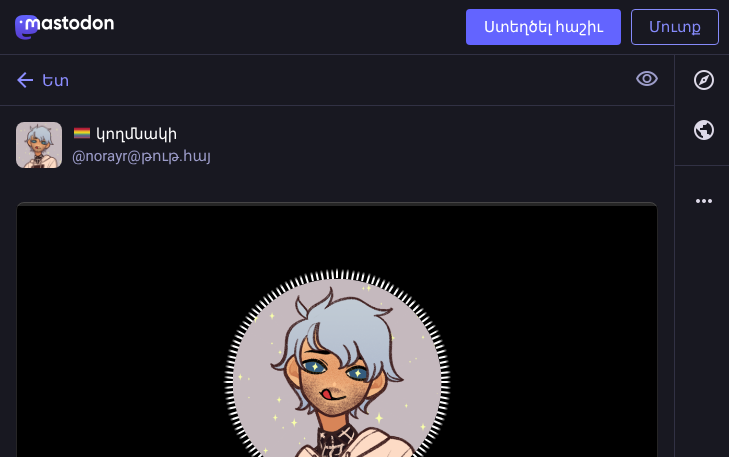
<svg xmlns="http://www.w3.org/2000/svg" width="729" height="457" viewBox="0 0 729 457">
  <defs>
    <clipPath id="clip1"><rect x="16" y="202" width="642" height="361" rx="8"/></clipPath>
  </defs>
  <rect width="100%" height="100%" fill="#181821"/>
  <path d="M0 54h729v1H0z" fill="#313144"/>
  <image x="15" y="15" width="99" height="25" href="img/1.png"/>
  <rect x="466" y="9" width="155" height="36" rx="4" fill="#6364ff"/>
  <rect x="631.5" y="9.5" width="87" height="35" rx="3.5" fill="none" stroke="#858afa"/>
  <path d="M0 105h674v1H0z" fill="#313144"/>
  <image x="17" y="72" width="16" height="16" href="img/2.png"/>
  <image x="636" y="71" width="22" height="15" href="img/3.png"/>
  <image x="16" y="122" width="46" height="46" href="img/4.png"/>
  <image x="74" y="127" width="16" height="12" href="img/5.png"/>
  <rect x="16" y="202" width="642" height="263" rx="8" fill="#000"/>
  <rect x="16.5" y="202.5" width="641" height="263" rx="7.5" fill="none" stroke="#fcf8ff26"/>
  <g clip-path="url(#clip1)">
    <rect x="16" y="202" width="642" height="4" rx="2" fill="#ffffff26"/>
  </g>
  <image x="223" y="268" width="228" height="189" href="img/6.png"/>
  <image x="232" y="278" width="210" height="179" href="img/7.png"/>
  <path d="M674 55h1v402H674z" fill="#313144"/>
  <image x="694" y="70" width="20" height="20" href="img/8.png"/>
  <image x="694" y="120" width="20" height="20" href="img/9.png"/>
  <path d="M675 165h54v1H675z" fill="#313144"/>
  <image x="696" y="199" width="16" height="4" href="img/10.png"/>
  <text x="484" y="32" word-spacing="-1" font-family="DejaVu Sans" font-size="15" fill="#fff">Ստեղծել հաշիւ</text>
  <text x="649" y="32" font-family="DejaVu Sans" font-size="15" fill="#858afa">Մուտք</text>
  <text x="42" y="86" font-family="DejaVu Sans" font-size="16" fill="#8c8dff">Ետ</text>
  <text x="96" y="139" font-family="DejaVu Sans" font-size="15" fill="#fff">կողմնակի</text>
  <text x="72" y="161" font-family="Roboto" font-size="15" fill="#9c9cc9">@norayr@</text>
  <text x="141" y="161" font-family="DejaVu Sans" font-size="15" fill="#9c9cc9">թութ</text>
  <text x="179" y="161" font-family="Roboto" font-size="15" fill="#9c9cc9">.</text>
  <text x="183" y="161" font-family="DejaVu Sans" font-size="15" fill="#9c9cc9">հայ</text>
</svg>
